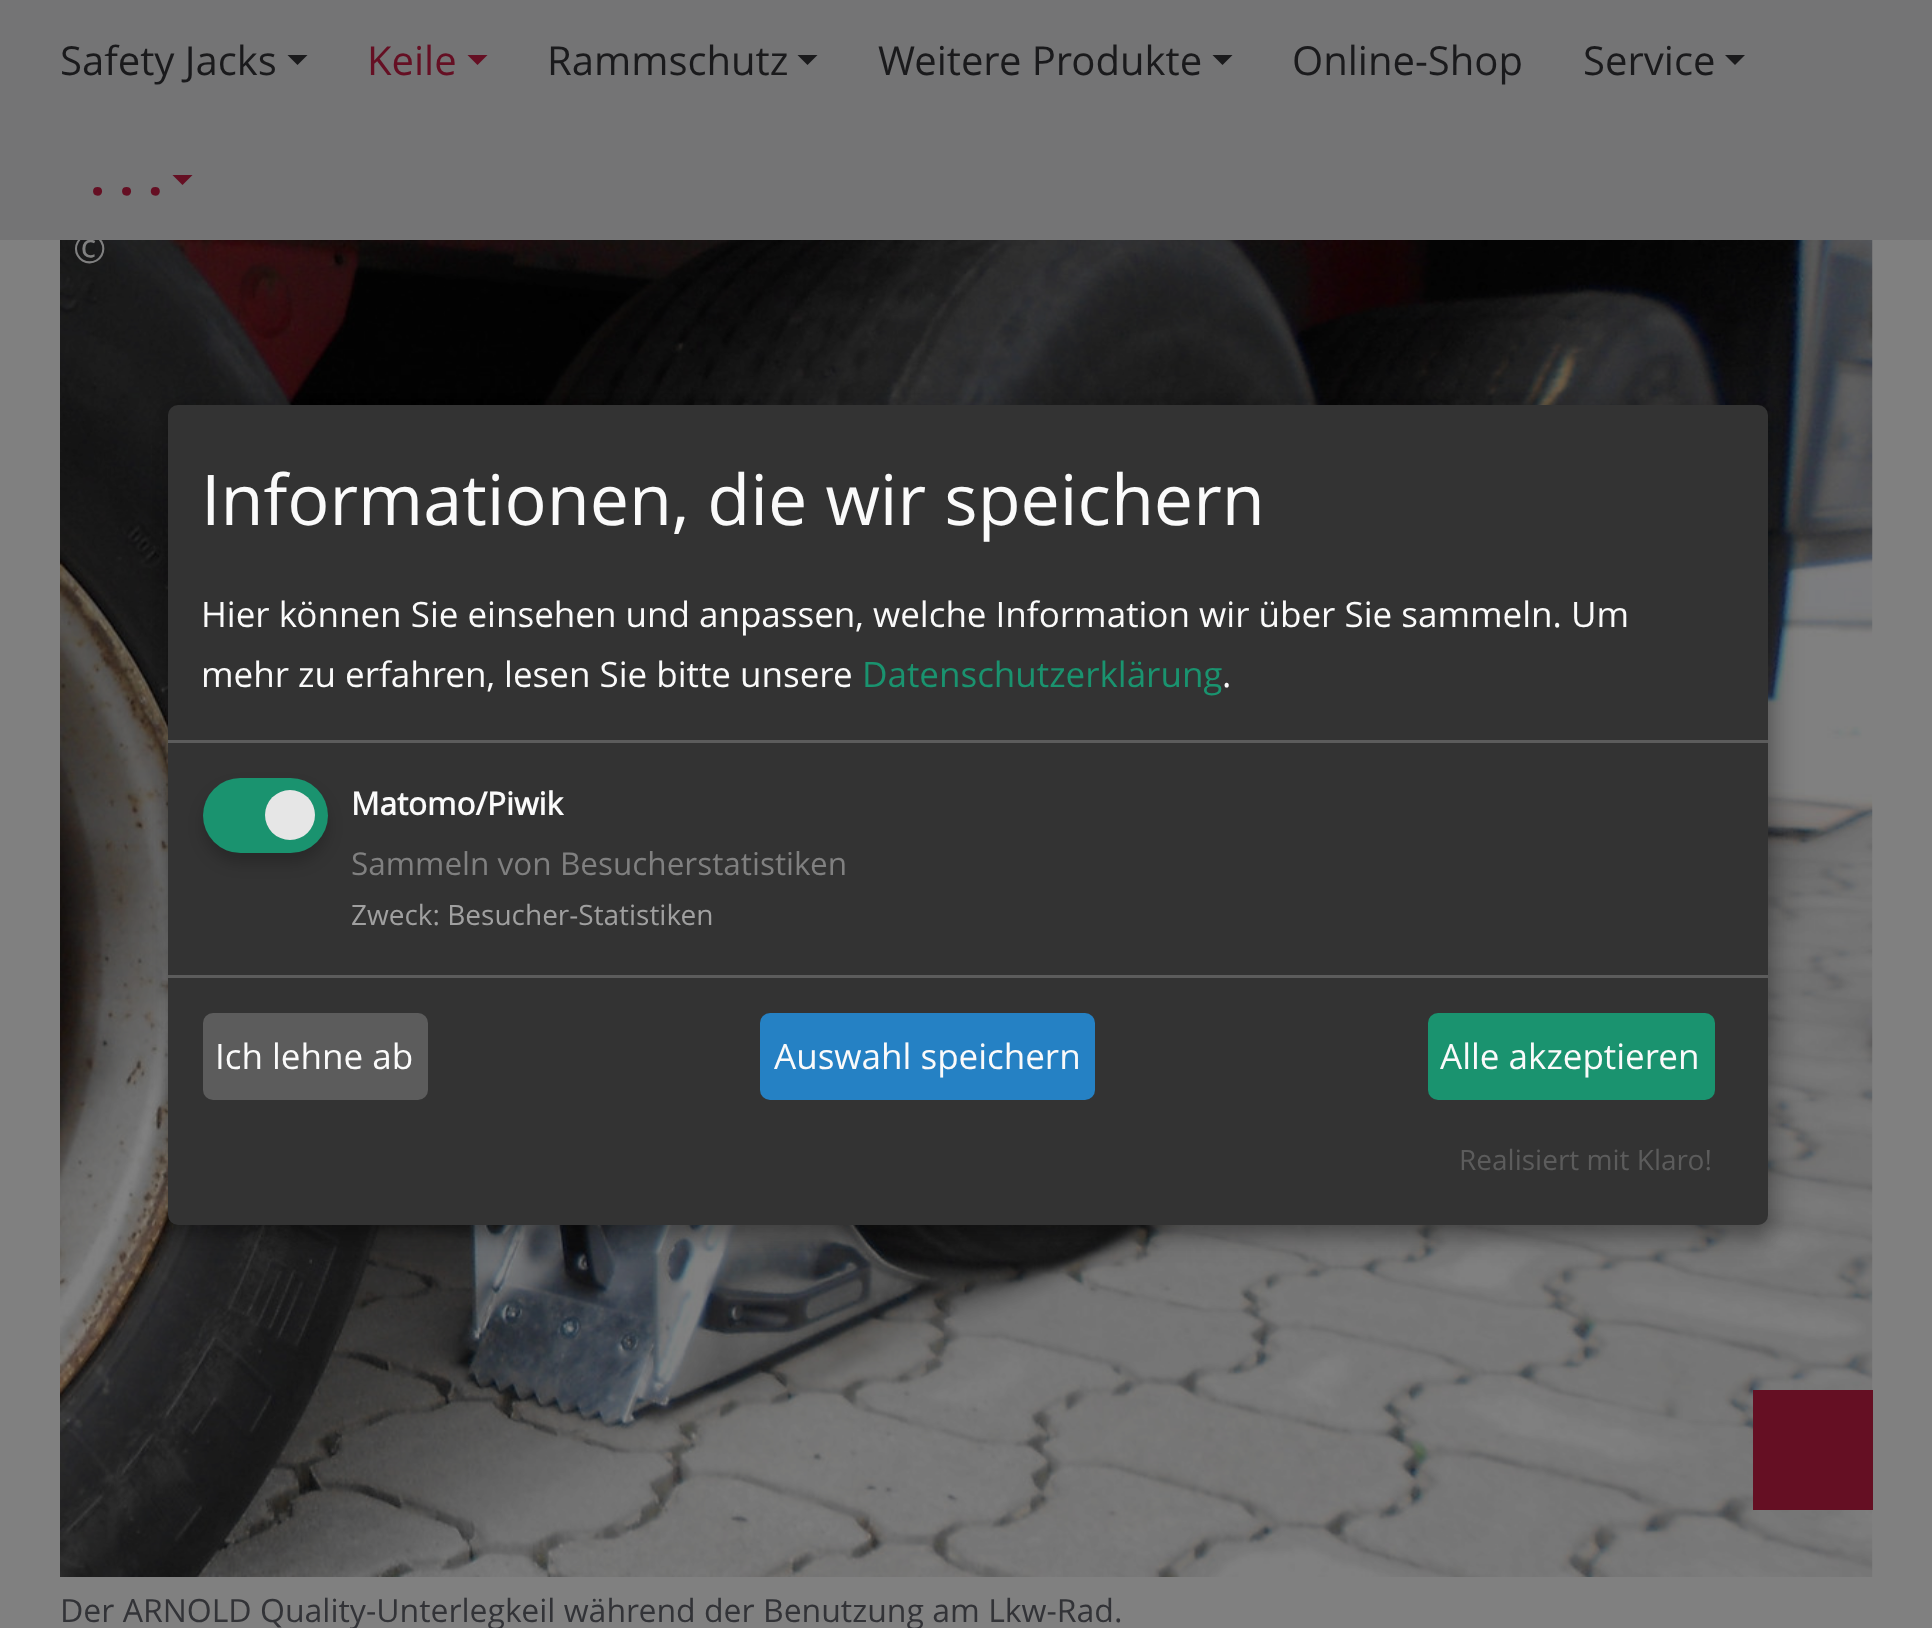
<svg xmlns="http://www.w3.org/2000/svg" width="1932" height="1628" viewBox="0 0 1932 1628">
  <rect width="100%" height="100%" fill="#808080"/>
  <image x="60" y="240" width="1813" height="1337" href="img/1.png"/>
  <rect x="180" y="418" width="1600" height="820" rx="10" fill="#00000030" filter="blur(12.5px)"/>
  <rect x="168" y="415" width="1600" height="820" rx="10" fill="#00000033" filter="blur(7.5px)"/>
  <rect x="168" y="405" width="1600" height="820" rx="10" fill="#333"/>
  <path d="M168 740h1600v3H168z" fill="#5c5c5c"/>
  <rect x="203" y="788" width="125" height="75" rx="37.5" fill="#00000033" filter="blur(7.5px)"/>
  <rect x="203" y="778" width="125" height="75" rx="37.5" fill="#1a936f"/>
  <circle cx="290" cy="815" r="25" fill="#e6e6e6"/>
  <path d="M168 975h1600v3H168z" fill="#5c5c5c"/>
  <rect x="203" y="1013" width="225" height="87" rx="10" fill="#5c5c5c"/>
  <rect x="760" y="1013" width="335" height="87" rx="10" fill="#2581c4"/>
  <rect x="1428" y="1013" width="287" height="87" rx="10" fill="#1a936f"/>
  <path d="M1753 1390h120v120H1753z" fill="#650f23"/>
  <text x="73" y="263" font-family="Open Sans" font-size="40" fill="#808080">©</text>
  <path d="M0 0h1932v240H0z" fill="#747475"/>
  <path d="M172.5 175H192.5L182.5 185Z" fill="#650f23"/>
  <text x="90" y="195" font-family="Open Sans" font-size="53" font-weight="bold" fill="#650f23">. . .</text>
  <path d="M1725 55H1745L1735 65Z" fill="#1a1a1c"/>
  <g font-family="Open Sans" font-size="40" fill="#1a1a1c">
    <text x="1583" y="75">Service</text>
    <text x="1292" y="75">Online-Shop</text>
  </g>
  <path d="M1212.5 55H1232.5L1222.5 65Z" fill="#1a1a1c"/>
  <text x="878" y="75" font-family="Open Sans" font-size="40" fill="#1a1a1c">Weitere Produkte</text>
  <path d="M797.5 55H817.5L807.5 65Z" fill="#1a1a1c"/>
  <text x="547" y="75" font-family="Open Sans" font-size="40" fill="#1a1a1c">Rammschutz</text>
  <path d="M467.5 55H487.5L477.5 65Z" fill="#650f23"/>
  <text x="367" y="75" font-family="Open Sans" font-size="40" fill="#650f23">Keile</text>
  <path d="M287.5 55H307.5L297.5 65Z" fill="#1a1a1c"/>
  <text x="60" y="75" font-family="Open Sans" font-size="40" fill="#1a1a1c">Safety Jacks</text>
  <text x="60" y="1622" font-family="Open Sans" font-size="32" fill="#323337">Der ARNOLD Quality-Unterlegkeil während der Benutzung am Lkw-Rad.</text>
  <text x="201" y="525" font-family="Open Sans" font-size="70" fill="#fafafa">Informationen, die wir speichern</text>
  <g font-family="Open Sans" font-size="35" fill="#fafafa">
    <text x="201" y="627">Hier können Sie einsehen und anpassen, welche Information wir über Sie sammeln. Um</text>
    <text x="201" y="687">mehr zu erfahren, lesen Sie bitte unsere</text>
  </g>
  <text x="862" y="687" font-family="Open Sans" font-size="35" fill="#1a936f">Datenschutzerklärung</text>
  <text x="1222" y="687" font-family="Open Sans" font-size="35" fill="#fafafa">.</text>
  <text x="351" y="815" font-family="'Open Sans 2'" font-size="31.5" font-weight="bold" fill="#fafafa">Matomo/Piwik</text>
  <text x="351" y="875" font-family="Open Sans" font-size="31.5" fill="#808080">Sammeln von Besucherstatistiken</text>
  <text x="351" y="925" font-family="Open Sans" font-size="28" fill="#a0a0a0">Zweck: Besucher-Statistiken</text>
  <g font-family="Open Sans" font-size="35" fill="#fafafa">
    <text x="215" y="1069">Ich lehne ab</text>
    <text x="774" y="1069">Auswahl speichern</text>
    <text x="1440" y="1069">Alle akzeptieren</text>
  </g>
  <text x="1459" y="1170" font-family="Open Sans" font-size="28" fill="#5c5c5c">Realisiert mit Klaro!</text>
</svg>
